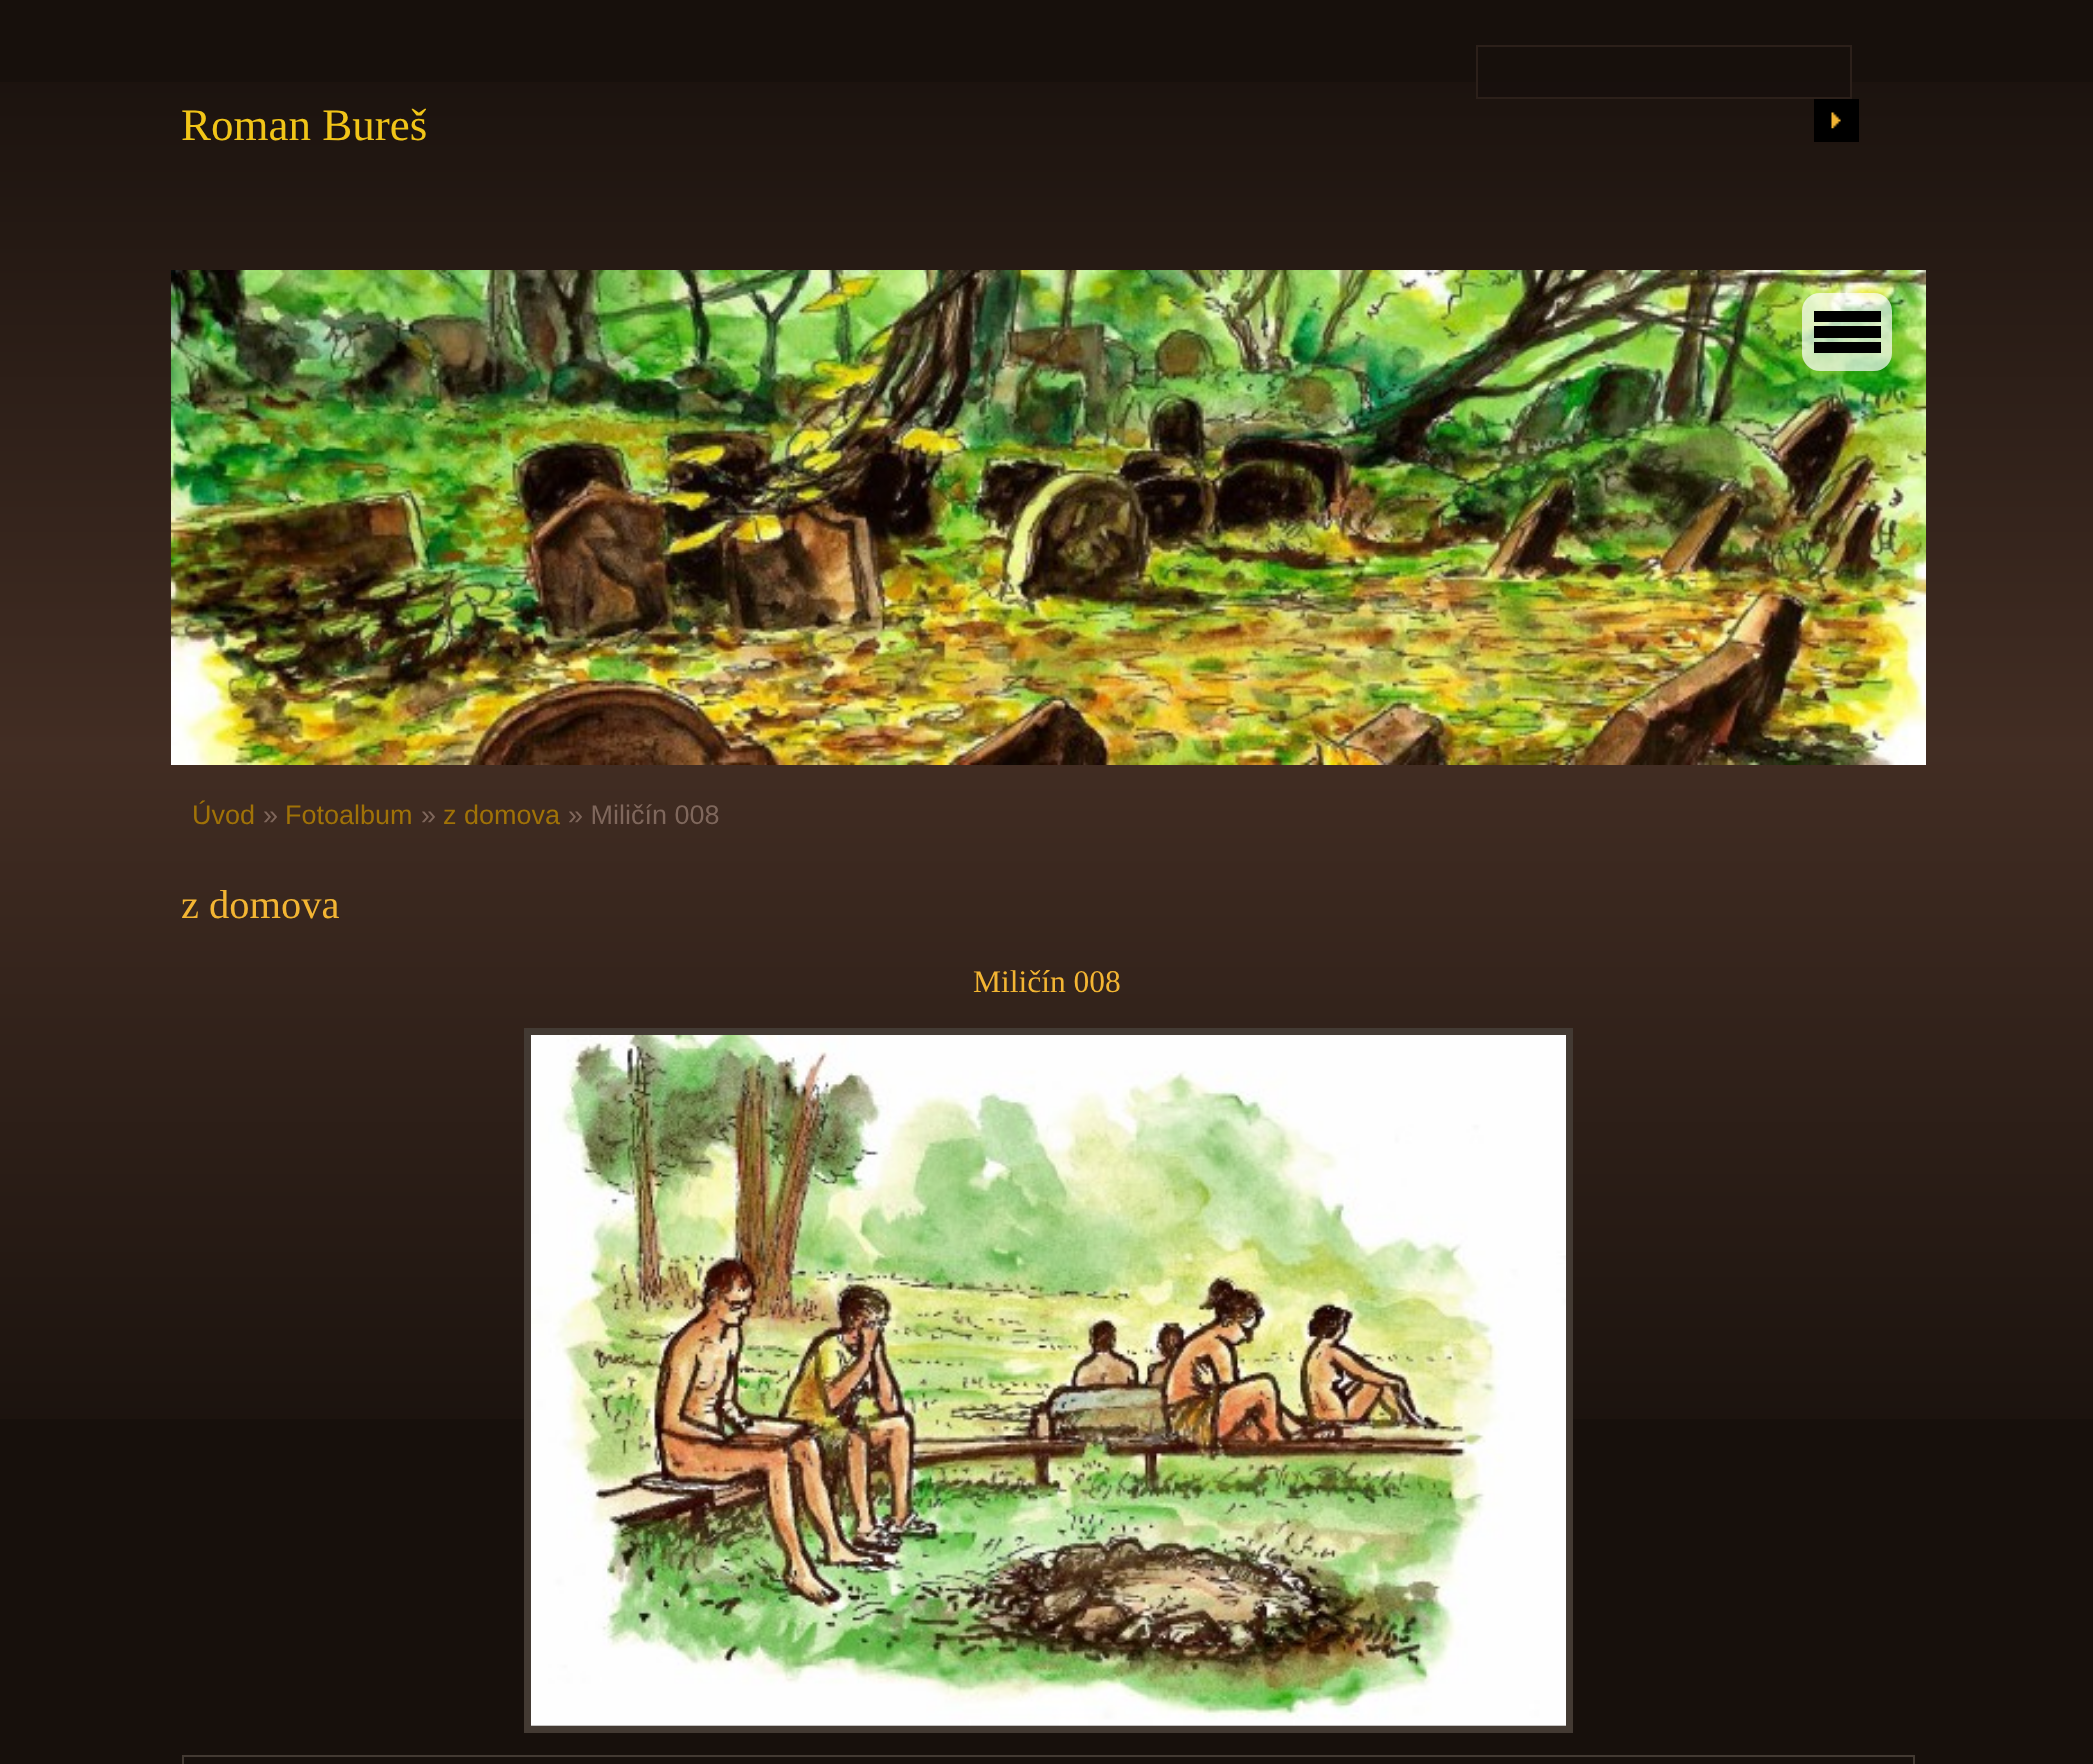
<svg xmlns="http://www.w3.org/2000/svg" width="2093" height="1764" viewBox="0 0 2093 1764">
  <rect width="100%" height="100%" fill="#17100c"/>
  <image x="0" y="82" width="2093" height="1337" href="img/1.png"/>
  <image x="171" y="270" width="1755" height="495" href="img/2.png"/>
  <path d="M1478 82h372v15H1478z" fill="#18100d"/>
  <path d="M1477 46h374v52H1477z" fill="none" stroke="#2c201a" stroke-width="2"/>
  <path d="M1814 99h45v43H1814z" fill="#000"/>
  <image x="1831" y="112" width="10" height="17" href="img/3.png"/>
  <path d="M527.5 1031.5h1042v698H527.5z" fill="none" stroke="#433a33" stroke-width="7"/>
  <image x="531" y="1035" width="1035" height="691" href="img/4.png"/>
  <path d="M183 1756h1731v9H183z" fill="none" stroke="#433a33" stroke-width="2"/>
  <rect x="1802" y="293" width="90" height="78" rx="18" fill="#ffffffb3"/>
  <path d="M1814 311h67v11H1814z" fill="#000"/>
  <path d="M1814 326h67v12H1814z" fill="#000"/>
  <path d="M1814 342h67v11H1814z" fill="#000"/>
  <text x="181" y="140" font-family="Liberation Serif" font-size="45" fill="#f1c518">Roman Bureš</text>
  <text x="192" y="824" font-family="Liberation Sans" font-size="27" fill="#a07207">Úvod</text>
  <text x="263" y="824" font-family="Liberation Sans" font-size="27" fill="#7f675c">»</text>
  <text x="285" y="824" font-family="Liberation Sans" font-size="27" fill="#a07207">Fotoalbum</text>
  <text x="421" y="824" font-family="Liberation Sans" font-size="27" fill="#7f675c">»</text>
  <text x="443" y="824" font-family="Liberation Sans" font-size="27" fill="#a07207">z domova</text>
  <text x="568" y="824" font-family="Liberation Sans" font-size="27" fill="#7f675c">» Miličín 008</text>
  <text x="181" y="918" font-family="Liberation Serif" font-size="40.5" fill="#f3b533">z domova</text>
  <text x="973" y="992" font-family="Liberation Serif" font-size="31.5" fill="#f3b533">Miličín 008</text>
</svg>
